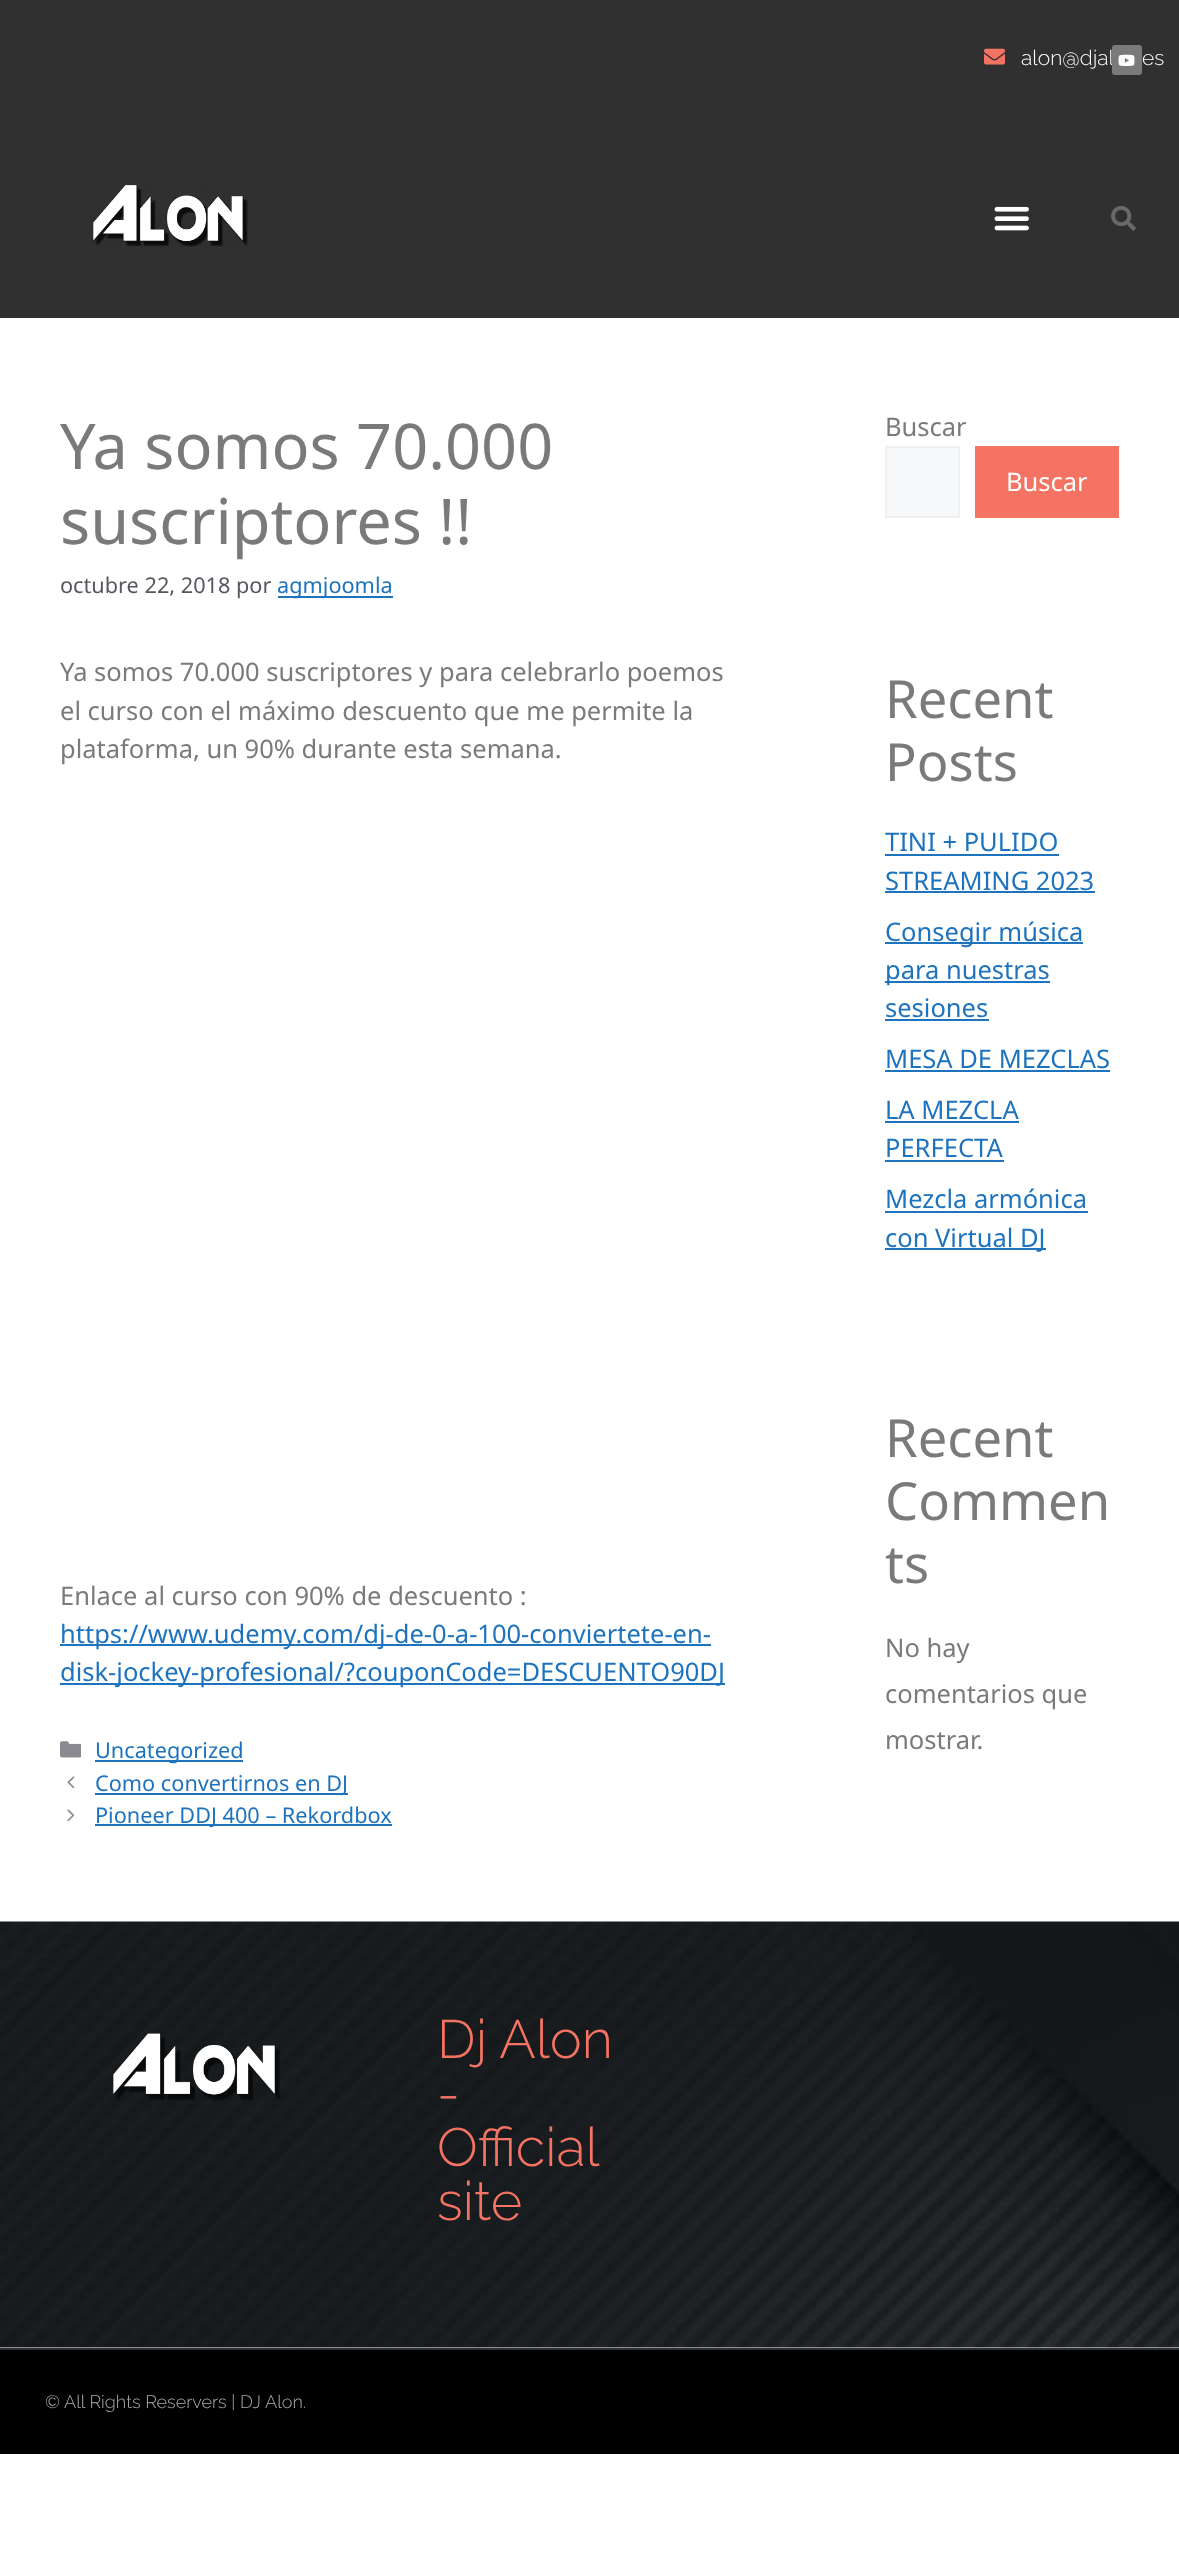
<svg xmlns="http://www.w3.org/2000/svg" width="1179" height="2575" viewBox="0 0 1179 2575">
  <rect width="100%" height="100%" fill="#fff"/>
  <path d="M0 0h1179v318H0z" fill="#303030"/>
  <image x="984" y="48" width="21" height="17" href="img/2.png"/>
  <image x="92" y="184" width="156" height="63" href="img/3.png"/>
  <image x="994" y="206" width="35" height="25" href="img/4.png"/>
  <image x="1111" y="206" width="25" height="25" href="img/5.png"/>
  <path d="M278 596h115v2H278z" fill="#1e73be"/>
  <path d="M60 1644h651v2H60z" fill="#1e73be"/>
  <path d="M60 1683h665v2H60z" fill="#1e73be"/>
  <image x="60" y="1741" width="21" height="17" href="img/6.png"/>
  <path d="M95 1760h148v2H95z" fill="#1e73be"/>
  <image x="67" y="1776" width="8" height="13" href="img/7.png"/>
  <path d="M95 1793h253v2H95z" fill="#1e73be"/>
  <image x="67" y="1809" width="8" height="13" href="img/8.png"/>
  <path d="M95 1824h297v2H95z" fill="#1e73be"/>
  <path d="M886 447h73v70H886z" fill="#f7f8f9" stroke="#f0f0f0" stroke-width="2"/>
  <path d="M975 446h144v72H975z" fill="#f47363"/>
  <path d="M885 854h174v2H885z" fill="#1e73be"/>
  <path d="M885 891h210v2H885z" fill="#1e73be"/>
  <path d="M885 942h198v2H885z" fill="#1e73be"/>
  <path d="M885 981h165v2H885z" fill="#1e73be"/>
  <path d="M885 1019h104v2H885z" fill="#1e73be"/>
  <path d="M885 1070h225v2H885z" fill="#1e73be"/>
  <path d="M885 1121h134v2H885z" fill="#1e73be"/>
  <path d="M885 1160h119v2H885z" fill="#1e73be"/>
  <path d="M885 1211h203v2H885z" fill="#1e73be"/>
  <path d="M885 1248h161v2H885z" fill="#1e73be"/>
  <image x="0" y="1921" width="1179" height="427" href="img/9.png"/>
  <image x="113" y="2033" width="167" height="68" href="img/10.png"/>
  <path d="M0 2350h1179v104H0z" fill="#000"/>
  <path d="M0 2348h1179v2H0z" fill="#303030"/>
  <text x="1021" y="65" font-family="Raleway" font-size="21" font-weight="300" fill="#fff">alon@djal</text>
  <rect x="1112" y="45" width="30" height="30" rx="3" fill="#7a7a7a"/>
  <image x="1118" y="54" width="17" height="12" href="img/1.png"/>
  <text x="1142" y="65" font-family="Raleway" font-size="21" font-weight="300" fill="#fff">es</text>
  <g font-family="Noto Sans" font-size="63" fill="#7a7a7a">
    <text x="60" y="469">Ya somos 70.000</text>
    <text x="60" y="544">suscriptores !!</text>
  </g>
  <text x="60" y="593" font-family="Noto Sans" font-size="21.7" fill="#575760">octubre 22, 2018 por</text>
  <text x="277" y="593" font-family="Noto Sans" font-size="21.7" fill="#1e73be">agmjoomla</text>
  <g font-family="Noto Sans" font-size="25.5" fill="#7a7a7a">
    <text x="60" y="681">Ya somos 70.000 suscriptores y para celebrarlo poemos</text>
    <text x="60" y="720">el curso con el máximo descuento que me permite la</text>
    <text x="60" y="758">plataforma, un 90% durante esta semana.</text>
    <text x="60" y="1605">Enlace al curso con 90% de descuento :</text>
  </g>
  <g font-family="Noto Sans" font-size="25.5" fill="#1e73be">
    <text x="60" y="1643">https://www.udemy.com/dj-de-0-a-100-conviertete-en-</text>
    <text x="60" y="1681">disk-jockey-profesional/?couponCode=DESCUENTO90DJ</text>
  </g>
  <g font-family="Noto Sans" font-size="21.7" fill="#1e73be">
    <text x="95" y="1758">Uncategorized</text>
    <text x="95" y="1791">Como convertirnos en DJ</text>
    <text x="95" y="1823">Pioneer DDJ 400 – Rekordbox</text>
  </g>
  <text x="885" y="436" font-family="Noto Sans" font-size="25.5" fill="#7a7a7a">Buscar</text>
  <text x="1006" y="491" font-family="Noto Sans" font-size="25.5" fill="#fff">Buscar</text>
  <g font-family="Noto Sans" font-size="52.5" fill="#7a7a7a">
    <text x="885" y="718">Recent</text>
    <text x="885" y="781">Posts</text>
  </g>
  <g font-family="Noto Sans" font-size="25.5" fill="#1e73be">
    <text x="885" y="851">TINI + PULIDO</text>
    <text x="885" y="890">STREAMING 2023</text>
    <text x="885" y="941">Consegir música</text>
    <text x="885" y="979">para nuestras</text>
    <text x="885" y="1017">sesiones</text>
    <text x="885" y="1068">MESA DE MEZCLAS</text>
    <text x="885" y="1119">LA MEZCLA</text>
    <text x="885" y="1157">PERFECTA</text>
    <text x="885" y="1208">Mezcla armónica</text>
    <text x="885" y="1247">con Virtual DJ</text>
  </g>
  <g font-family="Noto Sans" font-size="52.5" fill="#7a7a7a">
    <text x="885" y="1457">Recent</text>
    <text x="885" y="1520">Commen</text>
    <text x="885" y="1583">ts</text>
  </g>
  <g font-family="Noto Sans" font-size="25.5" fill="#7a7a7a">
    <text x="885" y="1657">No hay</text>
    <text x="885" y="1703">comentarios que</text>
    <text x="885" y="1749">mostrar.</text>
  </g>
  <g font-family="Raleway" font-size="54" font-weight="300" fill="#f47363">
    <text x="437" y="2058">Dj Alon</text>
    <text x="437" y="2112">-</text>
    <text x="437" y="2166">Official</text>
    <text x="437" y="2220">site</text>
  </g>
  <text x="45" y="2408" font-family="Raleway" font-size="18" font-weight="300" fill="#adadad">© All Rights Reservers | DJ Alon.</text>
</svg>
